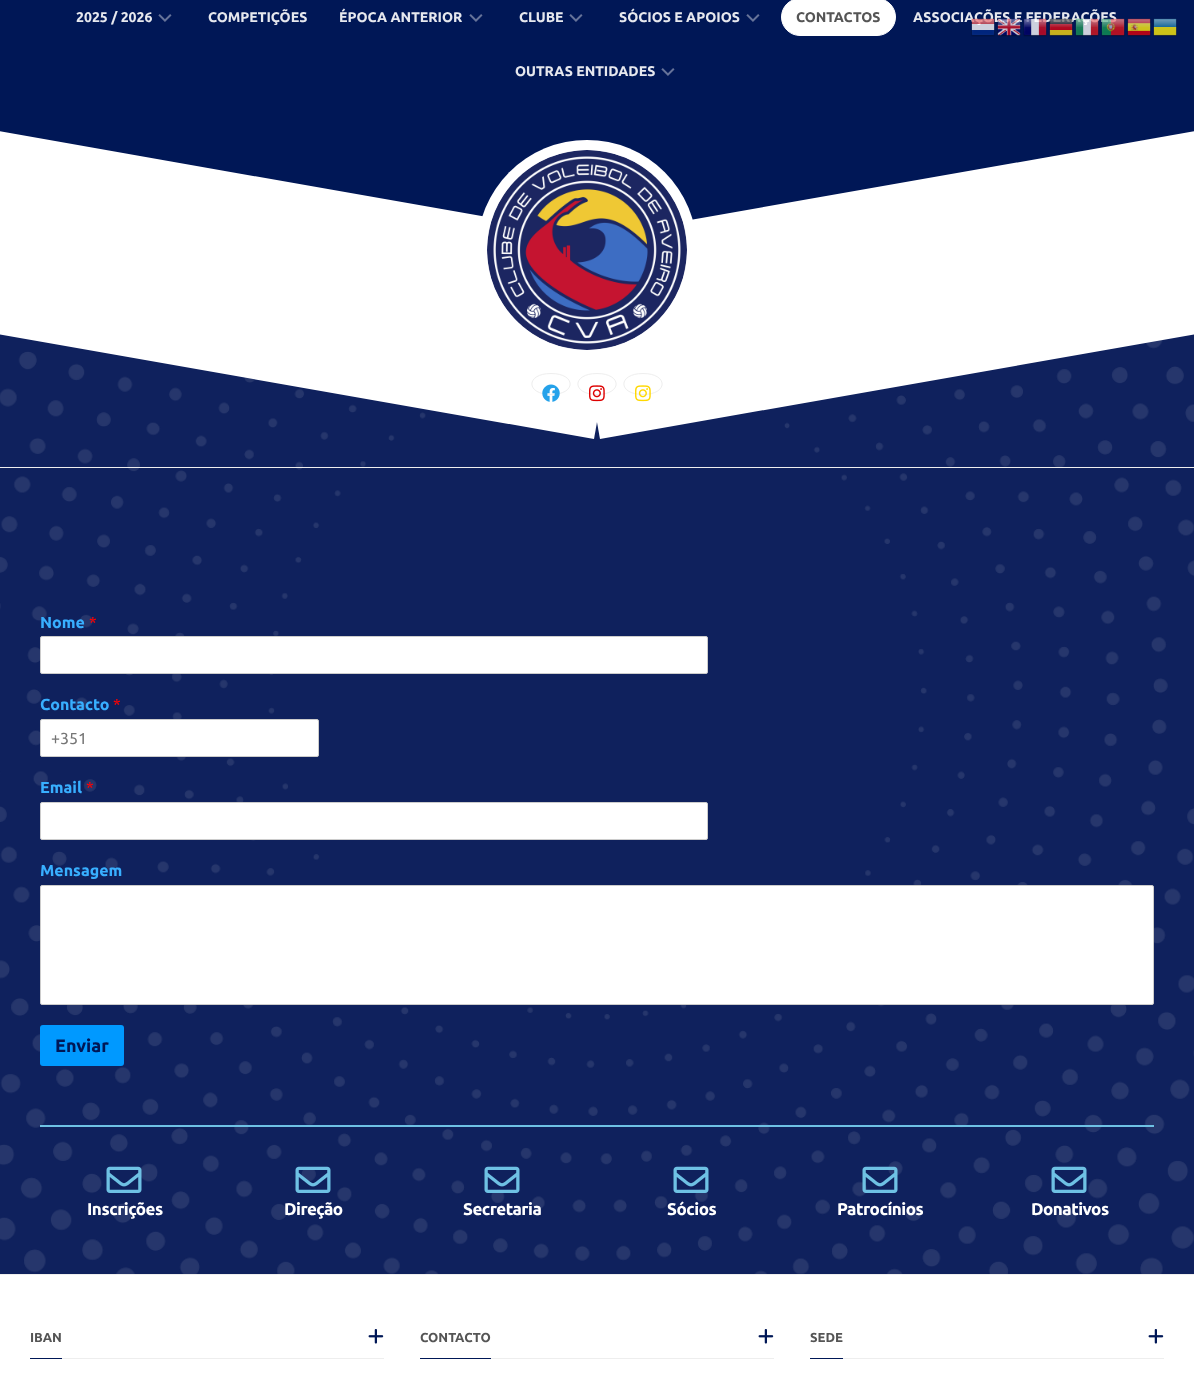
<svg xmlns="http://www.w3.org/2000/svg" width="1194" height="1382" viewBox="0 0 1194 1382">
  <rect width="100%" height="100%" fill="#0f215d"/>
  <image x="0" y="339" width="1194" height="935" href="img/1.png"/>
  <path d="M0 0h1194v220H0z" fill="#001756"/>
  <image x="158" y="14" width="14" height="8" href="img/2.png"/>
  <image x="469" y="14" width="14" height="8" href="img/2.png"/>
  <image x="569" y="14" width="14" height="8" href="img/2.png"/>
  <image x="746" y="14" width="14" height="8" href="img/2.png"/>
  <rect x="781.5" y="-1.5" width="114" height="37" rx="18.5" fill="#fff" stroke="#fff"/>
  <image x="661" y="68" width="14" height="8" href="img/2.png"/>
  <path d="M-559 33L629 242L594 439L-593 230Z" fill="#fff"/>
  <path d="M565 242L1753 33L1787 230L600 439Z" fill="#fff"/>
  <circle cx="587" cy="250" r="110" fill="#fff"/>
  <image x="487" y="150" width="200" height="200" href="img/3.png"/>
  <path d="M551 373.5C576.5 373.5 576.5 394.5 551 394.5C525.5 394.5 525.5 373.5 551 373.5Z" fill="none" stroke="#eee"/>
  <image x="542" y="384" width="18" height="18" href="img/4.png"/>
  <path d="M597 373.5C622.5 373.5 622.5 394.5 597 394.5C571.5 394.5 571.5 373.5 597 373.5Z" fill="none" stroke="#eee"/>
  <image x="589" y="385" width="16" height="17" href="img/5.png"/>
  <path d="M643 373.5C668.5 373.5 668.5 394.5 643 394.5C617.5 394.5 617.5 373.5 643 373.5Z" fill="none" stroke="#eee"/>
  <image x="635" y="385" width="16" height="17" href="img/6.png"/>
  <path d="M0 467h1194v1H0z" fill="#eee"/>
  <rect x="40.5" y="636.5" width="667" height="37" rx="1.5" fill="#fff" stroke="#ccc"/>
  <rect x="40.5" y="719.5" width="278" height="37" rx="1.5" fill="#fff" stroke="#ccc"/>
  <rect x="40.5" y="802.5" width="667" height="37" rx="1.5" fill="#fff" stroke="#ccc"/>
  <rect x="40.5" y="885.5" width="1113" height="119" rx="1.5" fill="#fff" stroke="#ccc"/>
  <rect x="40" y="1025" width="84" height="41" rx="3" fill="#09f"/>
  <path d="M40 1125h1114v2H40z" fill="#6ec1e4"/>
  <image x="106" y="1166" width="36" height="27" href="img/7.png"/>
  <image x="295" y="1166" width="36" height="27" href="img/8.png"/>
  <image x="484" y="1166" width="36" height="27" href="img/9.png"/>
  <image x="673" y="1166" width="36" height="27" href="img/10.png"/>
  <image x="862" y="1166" width="36" height="27" href="img/11.png"/>
  <image x="1051" y="1166" width="36" height="27" href="img/12.png"/>
  <path d="M0 1275h1194v107H0z" fill="#fff"/>
  <path d="M0 1274h1194v1H0z" fill="#eee"/>
  <path d="M62 1358h322v1H62z" fill="#eee"/>
  <path d="M30 1358h32v1H30z" fill="#001756"/>
  <image x="368" y="1329" width="16" height="15" href="img/13.png"/>
  <path d="M491 1358h283v1H491z" fill="#eee"/>
  <path d="M420 1358h71v1H420z" fill="#001756"/>
  <image x="758" y="1329" width="16" height="15" href="img/13.png"/>
  <path d="M843 1358h321v1H843z" fill="#eee"/>
  <path d="M810 1358h33v1H810z" fill="#001756"/>
  <image x="1148" y="1329" width="16" height="15" href="img/13.png"/>
  <image x="1127" y="18" width="24" height="19" href="img/20.png"/>
  <image x="1153" y="18" width="24" height="19" href="img/21.png"/>
  <g font-family="Ubuntu" font-size="14" font-weight="bold" fill="#e6e8ee">
    <text x="76" y="22">2025 / 2026</text>
    <text x="208" y="22">COMPETIÇÕES</text>
    <text x="339" y="22">ÉPOCA ANTERIOR</text>
    <text x="519" y="22">CLUBE</text>
    <text x="619" y="22">SÓCIOS E APOIOS</text>
  </g>
  <text x="796" y="22" font-family="Ubuntu" font-size="14" font-weight="bold" fill="#555">CONTACTOS</text>
  <g font-family="Ubuntu" font-size="14" font-weight="bold" fill="#e6e8ee">
    <text x="913" y="22">ASSOCIAÇÕES E FEDERAÇÕES</text>
    <text x="515" y="76">OUTRAS ENTIDADES</text>
  </g>
  <text x="40" y="628" font-family="Ubuntu" font-size="16" font-weight="bold" fill="#38afff">Nome</text>
  <text x="89" y="628" font-family="Ubuntu" font-size="16" fill="#f00">*</text>
  <text x="40" y="710" font-family="Ubuntu" font-size="16" font-weight="bold" fill="#38afff">Contacto</text>
  <text x="113" y="710" font-family="Ubuntu" font-size="16" fill="#f00">*</text>
  <text x="51" y="744" font-family="Ubuntu" font-size="16" fill="#757575">+351</text>
  <text x="40" y="793" font-family="Ubuntu" font-size="16" font-weight="bold" fill="#38afff">Email</text>
  <text x="86" y="793" font-family="Ubuntu" font-size="16" fill="#f00">*</text>
  <text x="40" y="876" font-family="Ubuntu" font-size="16" font-weight="bold" fill="#38afff">Mensagem</text>
  <text x="55" y="1052" font-family="Ubuntu" font-size="18" font-weight="bold" fill="#001756">Enviar</text>
  <g font-family="Ubuntu" font-size="17" font-weight="bold" letter-spacing="-0.5" fill="#fff">
    <text x="87" y="1215">Inscrições</text>
    <text x="284" y="1215">Direção</text>
    <text x="463" y="1215">Secretaria</text>
    <text x="667" y="1215">Sócios</text>
    <text x="837" y="1215">Patrocínios</text>
    <text x="1031" y="1215">Donativos</text>
  </g>
  <g font-family="Ubuntu" font-size="13" font-weight="bold" fill="#555">
    <text x="30" y="1342">IBAN</text>
    <text x="420" y="1342">CONTACTO</text>
    <text x="810" y="1342">SEDE</text>
  </g>
  <image x="971" y="18" width="24" height="19" href="img/14.png"/>
  <image x="997" y="18" width="24" height="19" href="img/15.png"/>
  <image x="1023" y="18" width="24" height="19" href="img/16.png"/>
  <image x="1049" y="18" width="24" height="19" href="img/17.png"/>
  <image x="1075" y="18" width="24" height="19" href="img/18.png"/>
  <image x="1101" y="18" width="24" height="19" href="img/19.png"/>
</svg>
